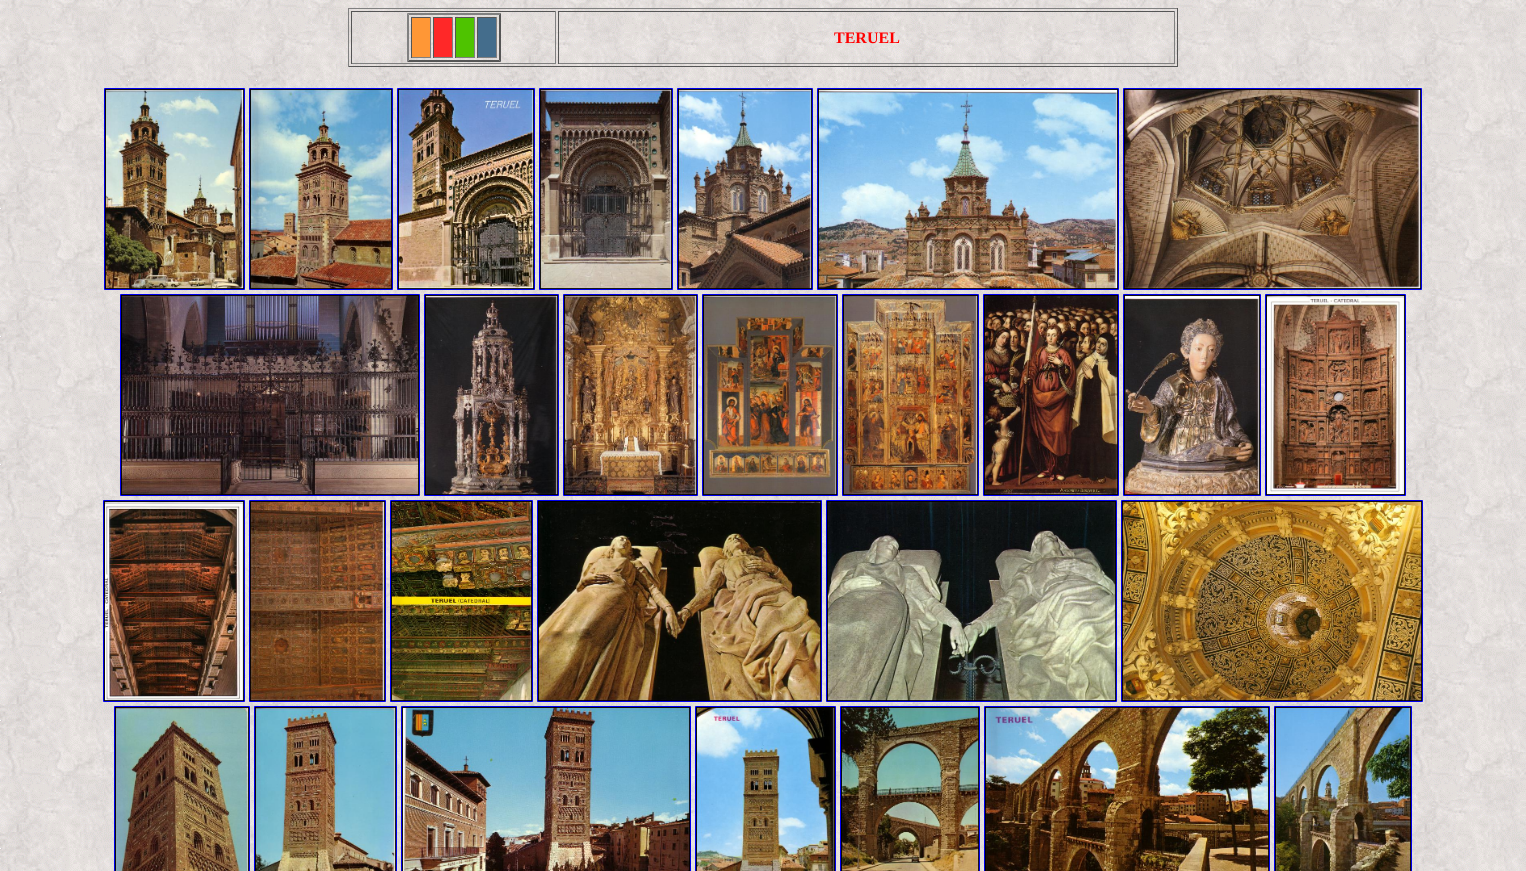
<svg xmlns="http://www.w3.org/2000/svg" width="1526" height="871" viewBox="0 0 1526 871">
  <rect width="100%" height="100%" fill="#fff"/>
  <image x="0" y="0" width="1526" height="871" href="img/1.png"/>
  <path d="M348 8h830v1H348z" fill="#808080"/>
  <path d="M1177 8h1v59H1177z" fill="#555"/>
  <path d="M348 66h830v1H348z" fill="#555"/>
  <path d="M348 8h1v59H348z" fill="#808080"/>
  <path d="M351 11h205v1H351z" fill="#555"/>
  <path d="M555 11h1v53H555z" fill="#808080"/>
  <path d="M351 63h205v1H351z" fill="#808080"/>
  <path d="M351 11h1v53H351z" fill="#555"/>
  <path d="M407 13H501L499 15H409Z" fill="#808080"/>
  <path d="M501 13V62L499 60V15Z" fill="#555"/>
  <path d="M501 62H407L409 60H499Z" fill="#555"/>
  <path d="M407 62V13L409 15V60Z" fill="#808080"/>
  <path d="M412 18h18v39H412z" fill="#ff9736"/>
  <path d="M411 17h20v1H411z" fill="#555"/>
  <path d="M430 17h1v41H430z" fill="#808080"/>
  <path d="M411 57h20v1H411z" fill="#808080"/>
  <path d="M411 17h1v41H411z" fill="#555"/>
  <path d="M434 18h18v39H434z" fill="#ff2828"/>
  <path d="M433 17h20v1H433z" fill="#555"/>
  <path d="M452 17h1v41H452z" fill="#808080"/>
  <path d="M433 57h20v1H433z" fill="#808080"/>
  <path d="M433 17h1v41H433z" fill="#555"/>
  <path d="M456 18h18v39H456z" fill="#4ec300"/>
  <path d="M455 17h20v1H455z" fill="#555"/>
  <path d="M474 17h1v41H474z" fill="#808080"/>
  <path d="M455 57h20v1H455z" fill="#808080"/>
  <path d="M455 17h1v41H455z" fill="#555"/>
  <path d="M478 18h18v39H478z" fill="#446d8c"/>
  <path d="M477 17h20v1H477z" fill="#555"/>
  <path d="M496 17h1v41H496z" fill="#808080"/>
  <path d="M477 57h20v1H477z" fill="#808080"/>
  <path d="M477 17h1v41H477z" fill="#555"/>
  <path d="M558 11h617v1H558z" fill="#555"/>
  <path d="M1174 11h1v53H1174z" fill="#808080"/>
  <path d="M558 63h617v1H558z" fill="#808080"/>
  <path d="M558 11h1v53H558z" fill="#555"/>
  <path d="M104.5 88.5h140v201H104.5z" fill="none" stroke="#00e"/>
  <path d="M249.5 88.5h143v201H249.5z" fill="none" stroke="#00e"/>
  <path d="M397.5 88.5h137v201H397.5z" fill="none" stroke="#00e"/>
  <path d="M539.5 88.5h133v201H539.5z" fill="none" stroke="#00e"/>
  <path d="M677.5 88.5h135v201H677.5z" fill="none" stroke="#00e"/>
  <path d="M817.5 88.5h301v201H817.5z" fill="none" stroke="#00e"/>
  <path d="M1123.5 88.5h298v201H1123.5z" fill="none" stroke="#00e"/>
  <image x="105" y="89" width="139" height="200" href="img/2.png"/>
  <image x="250" y="89" width="142" height="200" href="img/3.png"/>
  <image x="398" y="89" width="136" height="200" href="img/4.png"/>
  <image x="540" y="89" width="132" height="200" href="img/5.png"/>
  <image x="678" y="89" width="134" height="200" href="img/6.png"/>
  <image x="818" y="89" width="300" height="200" href="img/7.png"/>
  <image x="1124" y="89" width="297" height="200" href="img/8.png"/>
  <path d="M120.5 294.5h299v201H120.5z" fill="none" stroke="#00e"/>
  <path d="M424.5 294.5h134v201H424.5z" fill="none" stroke="#00e"/>
  <path d="M563.5 294.5h134v201H563.5z" fill="none" stroke="#00e"/>
  <path d="M702.5 294.5h135v201H702.5z" fill="none" stroke="#00e"/>
  <path d="M842.5 294.5h136v201H842.5z" fill="none" stroke="#00e"/>
  <path d="M983.5 294.5h135v201H983.5z" fill="none" stroke="#00e"/>
  <path d="M1123.5 294.5h137v201H1123.5z" fill="none" stroke="#00e"/>
  <path d="M1265.5 294.5h140v201H1265.5z" fill="none" stroke="#00e"/>
  <image x="121" y="295" width="298" height="200" href="img/9.png"/>
  <image x="425" y="295" width="133" height="200" href="img/10.png"/>
  <image x="564" y="295" width="133" height="200" href="img/11.png"/>
  <image x="703" y="295" width="134" height="200" href="img/12.png"/>
  <image x="843" y="295" width="135" height="200" href="img/13.png"/>
  <image x="984" y="295" width="134" height="200" href="img/14.png"/>
  <image x="1124" y="295" width="136" height="200" href="img/15.png"/>
  <image x="1266" y="295" width="139" height="200" href="img/16.png"/>
  <path d="M103.5 500.5h141v201H103.5z" fill="none" stroke="#00e"/>
  <path d="M249.5 500.5h136v201H249.5z" fill="none" stroke="#00e"/>
  <path d="M390.5 500.5h142v201H390.5z" fill="none" stroke="#00e"/>
  <path d="M537.5 500.5h284v201H537.5z" fill="none" stroke="#00e"/>
  <path d="M826.5 500.5h290v201H826.5z" fill="none" stroke="#00e"/>
  <path d="M1121.5 500.5h301v201H1121.5z" fill="none" stroke="#00e"/>
  <image x="104" y="501" width="140" height="200" href="img/17.png"/>
  <image x="250" y="501" width="135" height="200" href="img/18.png"/>
  <image x="391" y="501" width="141" height="200" href="img/19.png"/>
  <image x="538" y="501" width="283" height="200" href="img/20.png"/>
  <image x="827" y="501" width="289" height="200" href="img/21.png"/>
  <image x="1122" y="501" width="300" height="200" href="img/22.png"/>
  <path d="M114.5 706.5h135v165H114.5z" fill="none" stroke="#00e"/>
  <path d="M254.5 706.5h142v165H254.5z" fill="none" stroke="#00e"/>
  <path d="M401.5 706.5h289v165H401.5z" fill="none" stroke="#00e"/>
  <path d="M695.5 706.5h140v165H695.5z" fill="none" stroke="#00e"/>
  <path d="M840.5 706.5h139v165H840.5z" fill="none" stroke="#00e"/>
  <path d="M984.5 706.5h285v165H984.5z" fill="none" stroke="#00e"/>
  <path d="M1274.5 706.5h137v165H1274.5z" fill="none" stroke="#00e"/>
  <image x="115" y="707" width="134" height="164" href="img/23.png"/>
  <image x="255" y="707" width="141" height="164" href="img/24.png"/>
  <image x="402" y="707" width="288" height="164" href="img/25.png"/>
  <image x="696" y="707" width="139" height="164" href="img/26.png"/>
  <image x="841" y="707" width="138" height="164" href="img/27.png"/>
  <image x="985" y="707" width="284" height="164" href="img/28.png"/>
  <image x="1275" y="707" width="136" height="164" href="img/29.png"/>
  <text x="834" y="43" font-family="Liberation Serif" font-size="16" font-weight="bold" fill="#f00">TERUEL</text>
</svg>
